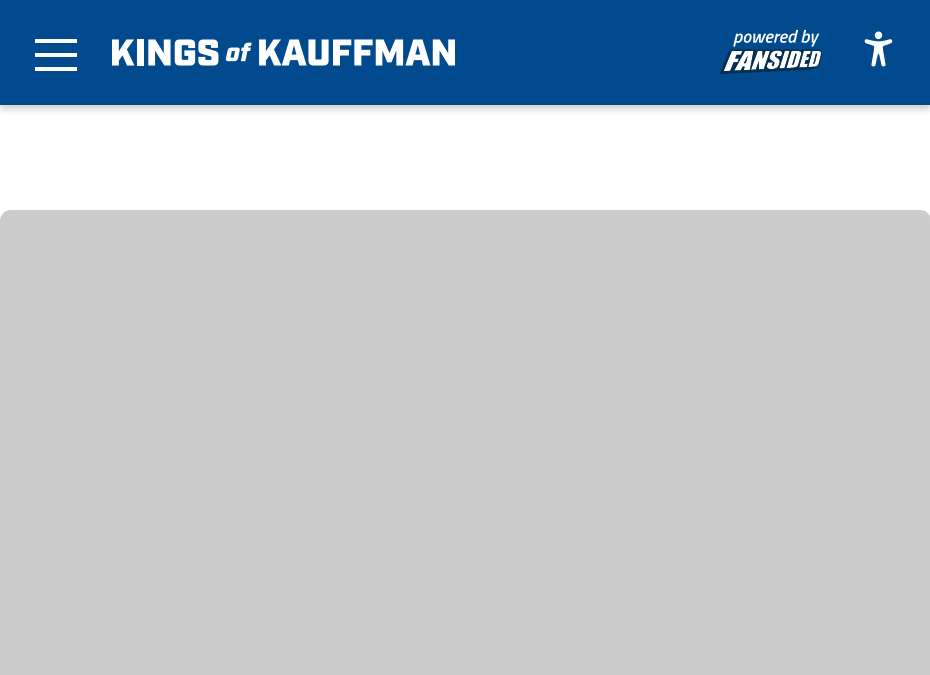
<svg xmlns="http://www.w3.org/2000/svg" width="930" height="675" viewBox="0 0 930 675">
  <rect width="100%" height="100%" fill="#fff"/>
  <path d="M0 4h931v105H0z" fill="#00000033" filter="blur(3.5px)"/>
  <path d="M0 0h930v105H0z" fill="#004a8d"/>
  <path d="M35 39h42v4H35z" fill="#fff"/>
  <path d="M35 53h42v4H35z" fill="#fff"/>
  <path d="M35 67h42v4H35z" fill="#fff"/>
  <image x="112" y="39" width="343" height="27" href="img/1.png"/>
  <image x="719" y="29" width="104" height="46" href="img/2.png"/>
  <image x="864" y="31" width="29" height="36" href="img/3.png"/>
  <rect y="210" width="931" height="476" rx="11" fill="#ccc"/>
</svg>
